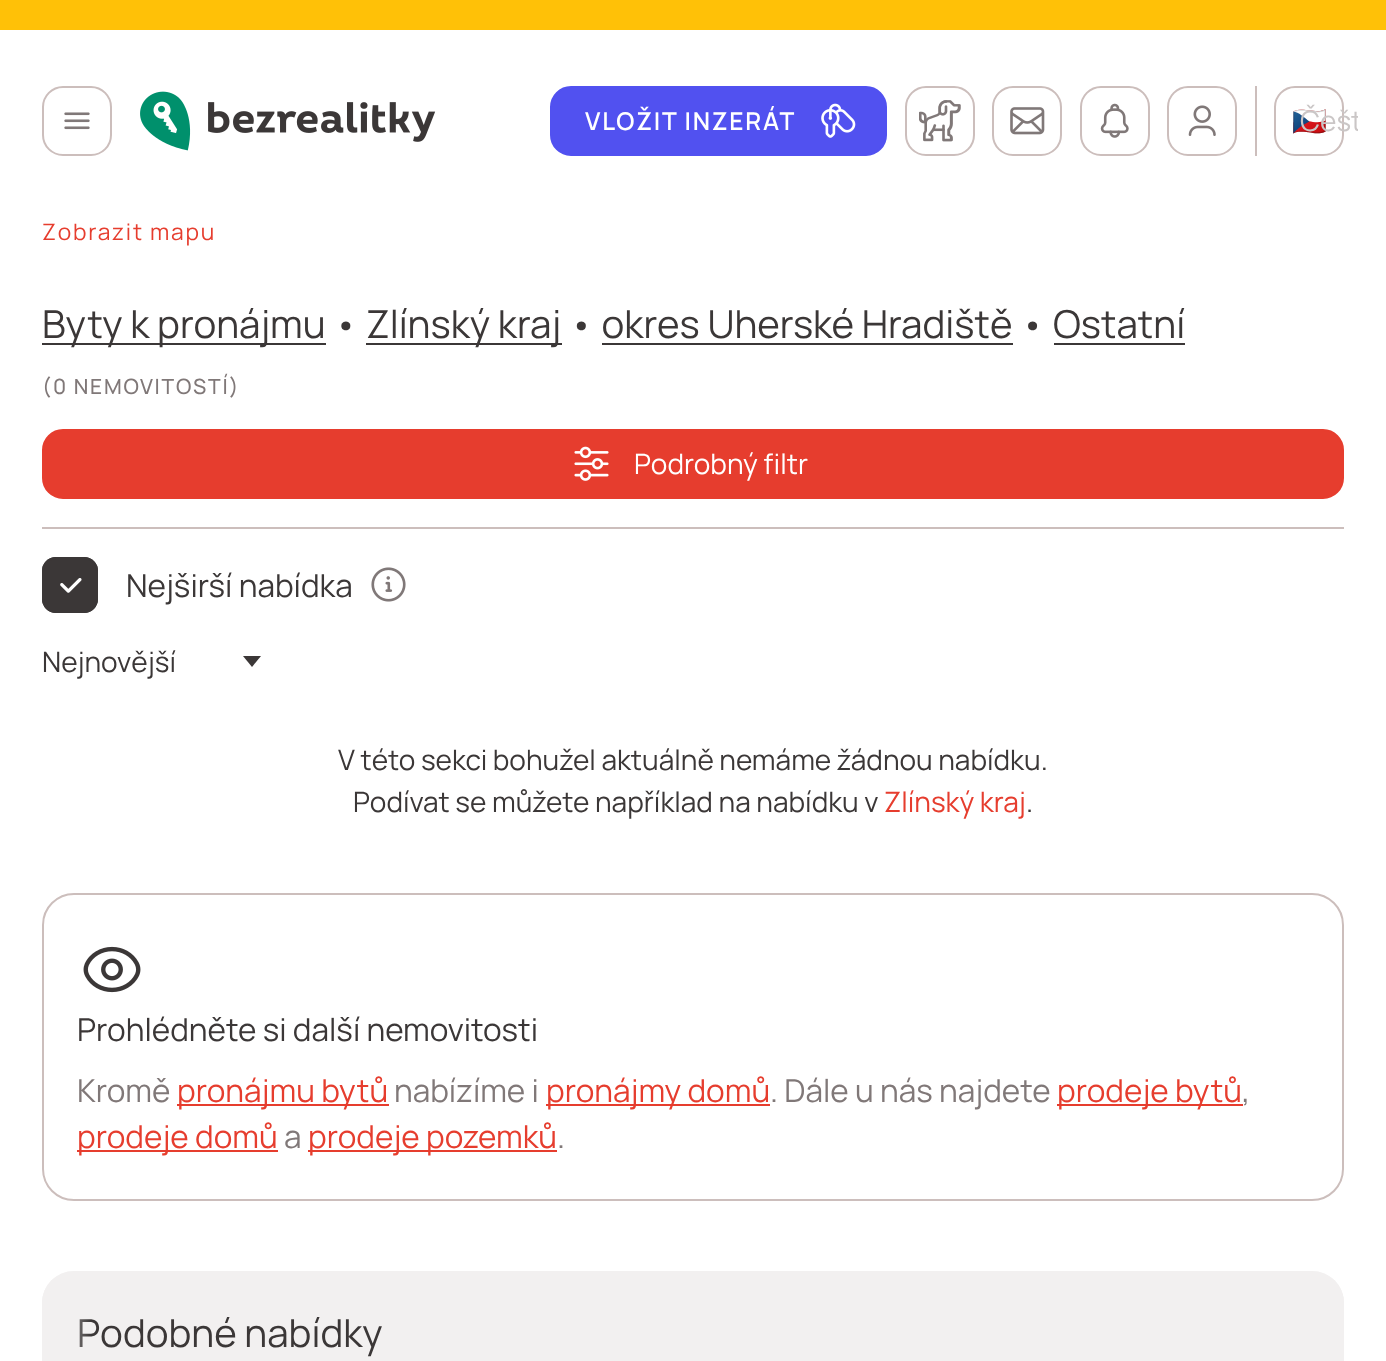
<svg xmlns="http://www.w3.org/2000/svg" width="1386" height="1361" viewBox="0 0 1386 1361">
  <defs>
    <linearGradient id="g1" gradientUnits="userSpaceOnUse" x1="1344" y1="1344" x2="1295" y2="1344"><stop offset="0" stop-color="#f2f0f0"/><stop offset="1" stop-color="#f2f0f0" stop-opacity="0"/></linearGradient>
    <clipPath id="clip1"><path d="M1260 100h98v42H1260z"/></clipPath>
    <linearGradient id="g2" gradientUnits="userSpaceOnUse" x1="42" y1="1344" x2="91" y2="1344"><stop offset="0" stop-color="#f2f0f0"/><stop offset="1" stop-color="#f2f0f0" stop-opacity="0"/></linearGradient>
  </defs>
  <rect width="100%" height="100%" fill="#ffc107"/>
  <path d="M0 30h1386v1331H0z" fill="#fff"/>
  <rect x="43" y="87" width="68" height="68" rx="20" fill="none" stroke="#ccbebc" stroke-width="2"/>
  <image x="64" y="112" width="26" height="18" href="img/1.png"/>
  <image x="140" y="91" width="296" height="60" href="img/2.png"/>
  <rect x="551" y="87" width="335" height="68" rx="20" fill="#5151f0" stroke="#5151f0" stroke-width="2"/>
  <image x="821" y="103" width="35" height="35" href="img/3.png"/>
  <rect x="906" y="87" width="68" height="68" rx="20" fill="none" stroke="#ccbebc" stroke-width="2"/>
  <image x="919" y="100" width="42" height="42" href="img/4.png"/>
  <rect x="993" y="87" width="68" height="68" rx="20" fill="none" stroke="#ccbebc" stroke-width="2"/>
  <image x="1010" y="107" width="35" height="28" href="img/5.png"/>
  <rect x="1081" y="87" width="68" height="68" rx="20" fill="none" stroke="#ccbebc" stroke-width="2"/>
  <image x="1100" y="103" width="29" height="35" href="img/6.png"/>
  <rect x="1168" y="87" width="68" height="68" rx="20" fill="none" stroke="#ccbebc" stroke-width="2"/>
  <image x="1188" y="105" width="28" height="31" href="img/7.png"/>
  <path d="M1255 86h2v70H1255z" fill="#ccbebc"/>
  <rect x="1275" y="87" width="68" height="68" rx="20" fill="none" stroke="#ccbebc" stroke-width="2"/>
  <path d="M42 343h284v2H42z" fill="#3b3737"/>
  <path d="M366 343h196v2H366z" fill="#3b3737"/>
  <path d="M602 343h411v2H602z" fill="#3b3737"/>
  <path d="M1054 343h131v2H1054z" fill="#3b3737"/>
  <rect x="43" y="430" width="1300" height="68" rx="20" fill="#e63d2e" stroke="#e63d2e" stroke-width="2"/>
  <image x="574" y="446" width="35" height="35" href="img/8.png"/>
  <path d="M42 527h1302v2H42z" fill="#ccbebc"/>
  <rect x="42" y="557" width="56" height="56" rx="14" fill="#3b3737"/>
  <image x="60" y="578" width="22" height="15" href="img/9.png"/>
  <rect x="43" y="558" width="54" height="54" rx="13" fill="none" stroke="#3b3737" stroke-width="2"/>
  <image x="371" y="567" width="35" height="35" href="img/10.png"/>
  <path d="M252 667L243 656H261Z" fill="#3b3737"/>
  <rect x="43" y="894" width="1300" height="306" rx="31" fill="none" stroke="#ccbebc" stroke-width="2"/>
  <image x="83" y="946" width="58" height="47" href="img/11.png"/>
  <path d="M177 1104h212v2H177z" fill="#e63d2e"/>
  <path d="M546 1104h224v2H546z" fill="#e63d2e"/>
  <path d="M1057 1104h186v2H1057z" fill="#e63d2e"/>
  <path d="M77 1150h201v2H77z" fill="#e63d2e"/>
  <path d="M308 1150h249v2H308z" fill="#e63d2e"/>
  <rect x="42" y="1271" width="1302" height="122" rx="32" fill="#f2f0f0"/>
  <path d="M1295 1271H1312C1329.5 1271 1344 1285.5 1344 1303V1361C1344 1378.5 1329.5 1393 1312 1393H1295Z" fill="url(#g1)"/>
  <text x="585" y="130" font-family="Manrope" font-size="24.5" font-weight="600" letter-spacing="1.75" fill="#fff">VLOŽIT INZERÁT</text>
  <text x="1292" y="131" font-family="Noto Color Emoji" font-size="28" fill="#807878">🇨🇿</text>
  <g clip-path="url(#clip1)">
    <text x="1300" y="131" font-family="Manrope" font-size="28" fill="#cac6c6">Češt</text>
  </g>
  <text x="42" y="240" font-family="Manrope" font-size="22.75" letter-spacing="1.75" fill="#e63d2e">Zobrazit mapu</text>
  <g font-family="Manrope" font-size="38.5" fill="#3b3737">
    <text x="42" y="338">Byty k pronájmu •</text>
    <text x="366" y="338">Zlínský kraj • okres Uherské Hradiště • Ostatní</text>
  </g>
  <text x="42" y="394" font-family="Manrope" font-size="21" font-weight="500" letter-spacing="1.75" fill="#807878">(0 NEMOVITOSTÍ)</text>
  <text x="634" y="474" font-family="Manrope" font-size="28" fill="#fff">Podrobný filtr</text>
  <text x="126" y="597" font-family="Manrope" font-size="31.5" fill="#3b3737">Nejširší nabídka</text>
  <g font-family="Manrope" font-size="28" fill="#3b3737">
    <text x="42" y="672">Nejnovější</text>
    <text x="338" y="770">V této sekci bohužel aktuálně nemáme žádnou nabídku.</text>
    <text x="353" y="812">Podívat se můžete například na nabídku v</text>
  </g>
  <text x="884" y="812" font-family="Manrope" font-size="28" fill="#e63d2e">Zlínský kraj</text>
  <text x="1026" y="812" font-family="Manrope" font-size="28" fill="#3b3737">.</text>
  <text x="77" y="1041" font-family="Manrope" font-size="31.5" fill="#3b3737">Prohlédněte si další nemovitosti</text>
  <text x="77" y="1102" font-family="Manrope" font-size="31.5" fill="#807878">Kromě</text>
  <text x="177" y="1102" font-family="Manrope" font-size="31.5" fill="#e63d2e">pronájmu bytů</text>
  <text x="394" y="1102" font-family="Manrope" font-size="31.5" fill="#807878">nabízíme i</text>
  <text x="546" y="1102" font-family="Manrope" font-size="31.5" fill="#e63d2e">pronájmy domů</text>
  <text x="770" y="1102" font-family="Manrope" font-size="31.5" fill="#807878">. Dále u nás najdete</text>
  <text x="1057" y="1102" font-family="Manrope" font-size="31.5" fill="#e63d2e">prodeje bytů</text>
  <text x="1242" y="1102" font-family="Manrope" font-size="31.5" fill="#807878">,</text>
  <text x="77" y="1148" font-family="Manrope" font-size="31.5" fill="#e63d2e">prodeje domů</text>
  <text x="284" y="1148" font-family="Manrope" font-size="31.5" fill="#807878">a</text>
  <text x="308" y="1148" font-family="Manrope" font-size="31.5" fill="#e63d2e">prodeje pozemků</text>
  <text x="557" y="1148" font-family="Manrope" font-size="31.5" fill="#807878">.</text>
  <text x="77" y="1347" font-family="Manrope" font-size="38.5" fill="#3b3737">Podobné nabídky</text>
  <path d="M74 1271H91V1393H74C56.5 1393 42 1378.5 42 1361V1303C42 1285.5 56.5 1271 74 1271Z" fill="url(#g2)"/>
</svg>
